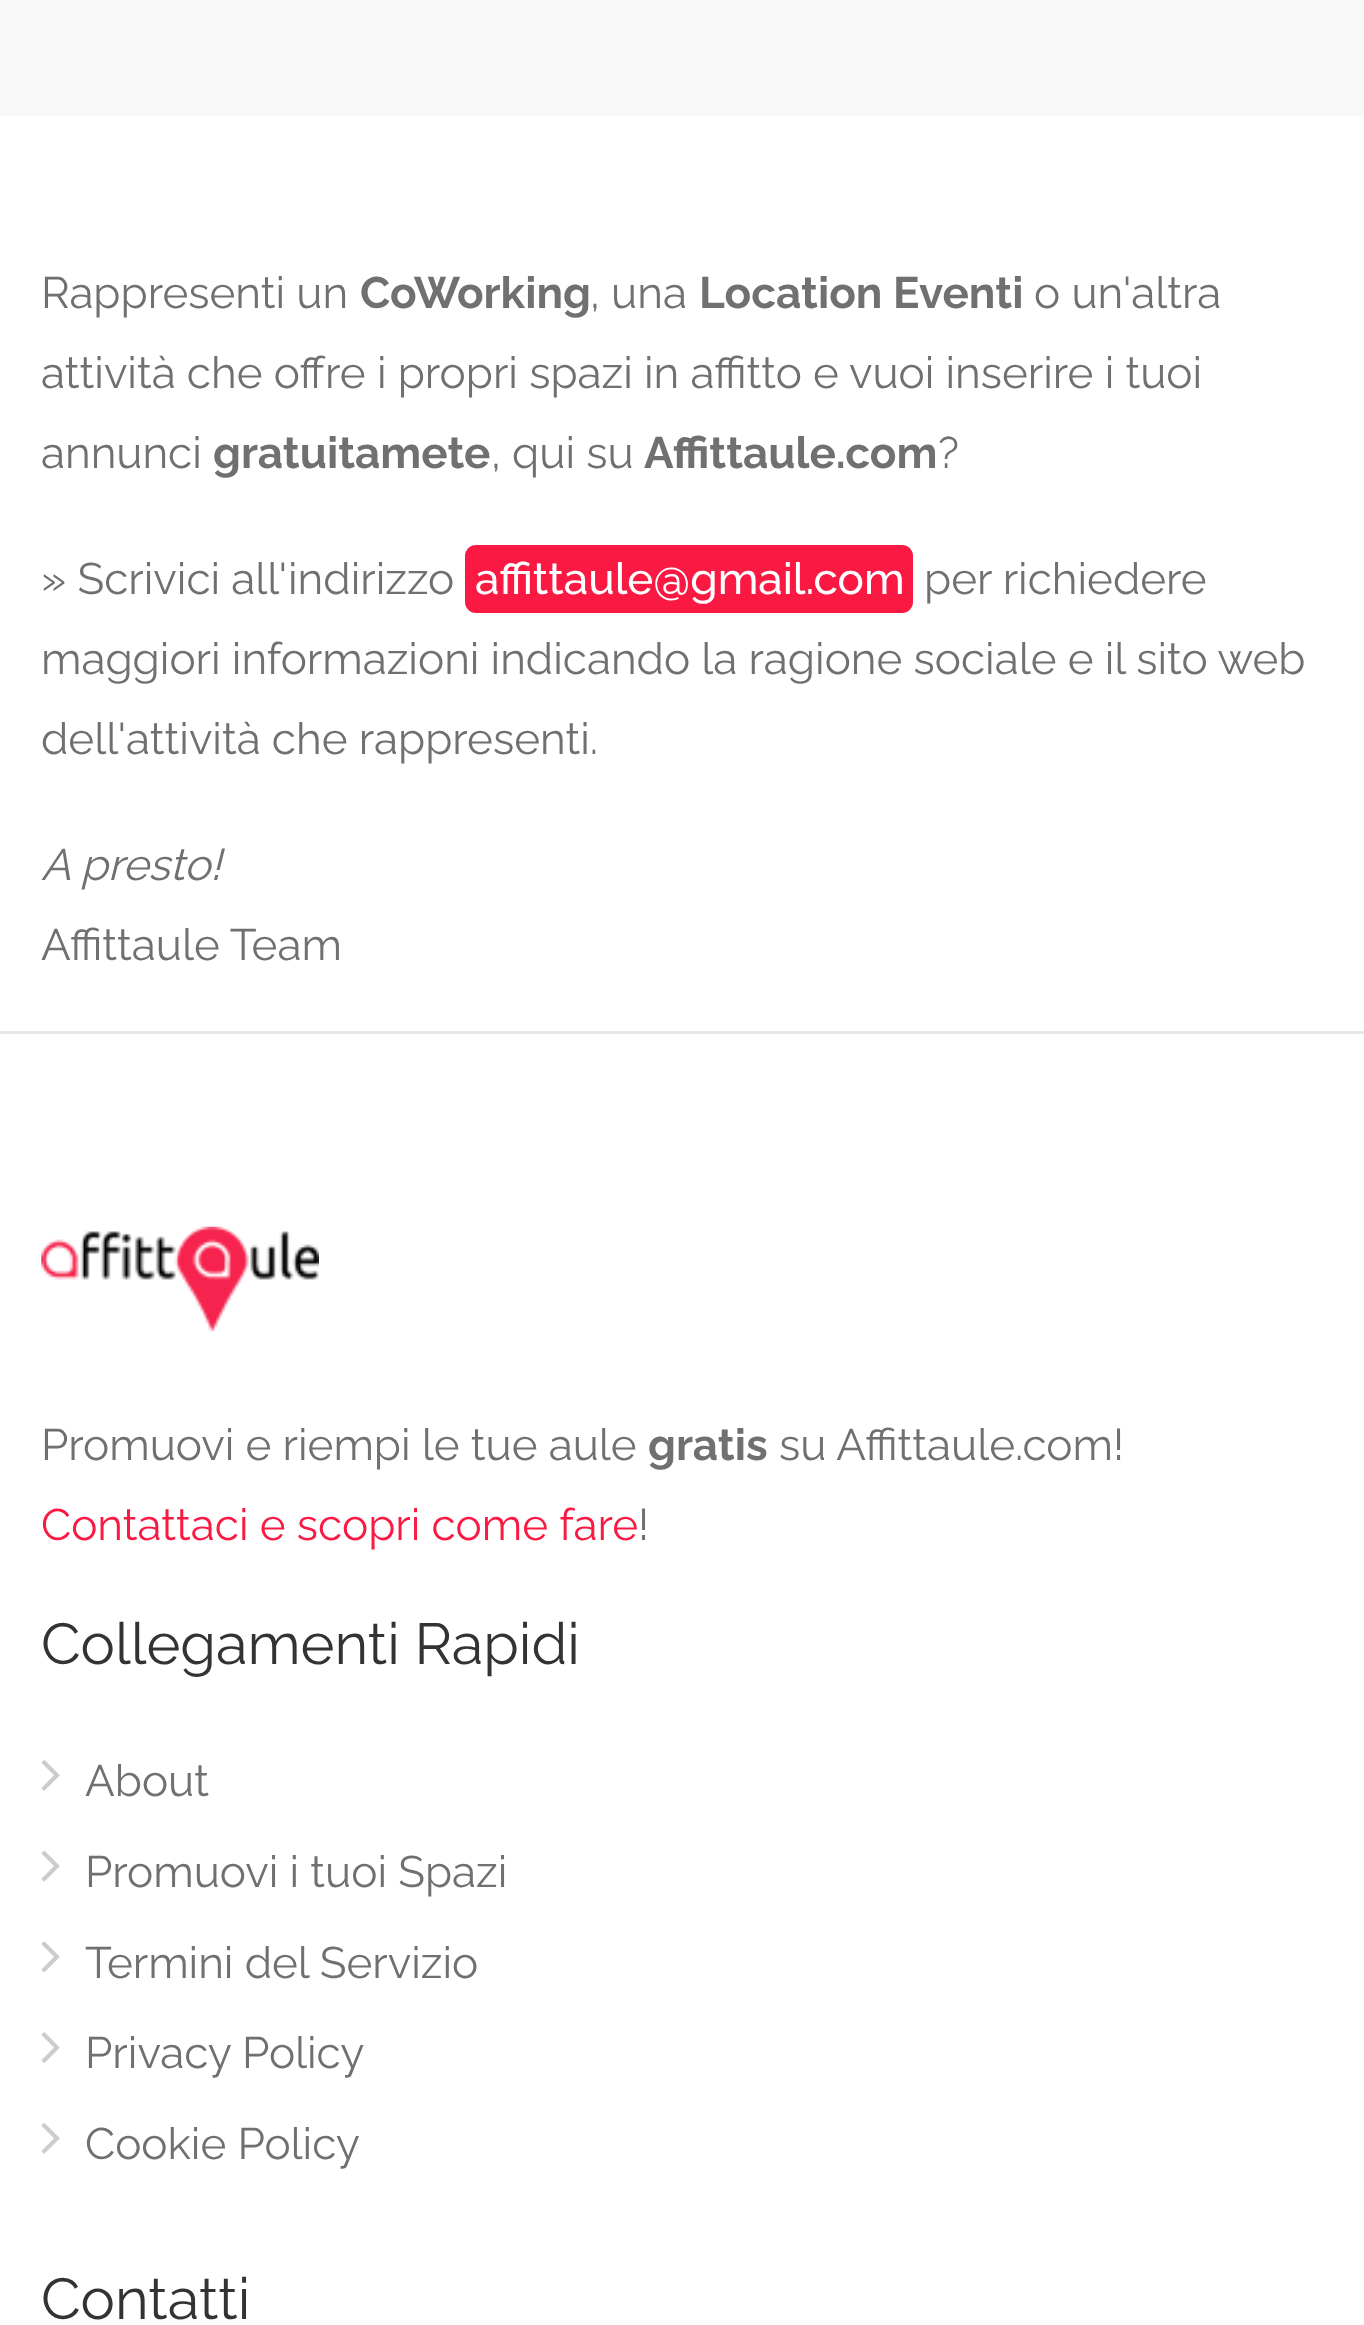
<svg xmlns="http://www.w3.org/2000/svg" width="1364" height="2325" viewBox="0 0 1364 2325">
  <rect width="100%" height="100%" fill="#fff"/>
  <path d="M0 0h1364v116H0z" fill="#f8f8f8"/>
  <rect x="465" y="545" width="448" height="68" rx="11" fill="#f91942"/>
  <path d="M0 1031h1364v3H0z" fill="#e8e8e8"/>
  <image x="41" y="1226" width="278" height="106" href="img/1.png"/>
  <image x="41" y="1760" width="19" height="31" href="img/2.png"/>
  <image x="41" y="1850" width="19" height="32" href="img/3.png"/>
  <image x="41" y="1941" width="19" height="31" href="img/4.png"/>
  <image x="41" y="2032" width="19" height="31" href="img/5.png"/>
  <image x="41" y="2123" width="19" height="31" href="img/2.png"/>
  <text x="41" y="308" font-family="Raleway" font-size="44" fill="#707070">Rappresenti un</text>
  <text x="360" y="308" font-family="Raleway" font-size="44" font-weight="bold" fill="#707070">CoWorking</text>
  <text x="590" y="308" font-family="Raleway" font-size="44" fill="#707070">, una</text>
  <text x="699" y="308" font-family="Raleway" font-size="44" font-weight="bold" fill="#707070">Location Eventi</text>
  <g font-family="Raleway" font-size="44" fill="#707070">
    <text x="1034" y="308">o un'altra</text>
    <text x="41" y="388">attività che offre i propri spazi in affitto e vuoi inserire i tuoi</text>
    <text x="41" y="468">annunci</text>
  </g>
  <text x="213" y="468" font-family="Raleway" font-size="44" font-weight="bold" fill="#707070">gratuitamete</text>
  <text x="491" y="468" font-family="Raleway" font-size="44" fill="#707070">, qui su</text>
  <text x="644" y="468" font-family="Raleway" font-size="44" font-weight="bold" fill="#707070">Affittaule.com</text>
  <g font-family="Raleway" font-size="44" fill="#707070">
    <text x="938" y="468">?</text>
    <text x="41" y="594">» Scrivici all'indirizzo</text>
  </g>
  <text x="475" y="594" font-family="Raleway" font-size="44" font-weight="500" fill="#fff">affittaule@gmail.com</text>
  <g font-family="Raleway" font-size="44" fill="#707070">
    <text x="924" y="594">per richiedere</text>
    <text x="41" y="674">maggiori informazioni indicando la ragione sociale e il sito web</text>
    <text x="41" y="754">dell'attività che rappresenti.</text>
  </g>
  <text x="41" y="880" font-family="Raleway" font-size="44" font-style="italic" fill="#707070">A presto!</text>
  <g font-family="Raleway" font-size="44" fill="#707070">
    <text x="41" y="960">Affittaule Team</text>
    <text x="41" y="1460">Promuovi e riempi le tue aule</text>
  </g>
  <text x="648" y="1460" font-family="Raleway" font-size="44" font-weight="bold" fill="#707070">gratis</text>
  <text x="779" y="1460" font-family="Raleway" font-size="44" fill="#707070">su Affittaule.com!</text>
  <text x="41" y="1540" font-family="Raleway" font-size="44" fill="#f91942">Contattaci e scopri come fare</text>
  <text x="638" y="1540" font-family="Raleway" font-size="44" fill="#707070">!</text>
  <text x="41" y="1664" font-family="Raleway" font-size="57.75" fill="#333">Collegamenti Rapidi</text>
  <g font-family="Raleway" font-size="44" fill="#707070">
    <text x="85" y="1796">About</text>
    <text x="85" y="1887">Promuovi i tuoi Spazi</text>
    <text x="85" y="1978">Termini del Servizio</text>
    <text x="85" y="2068">Privacy Policy</text>
    <text x="85" y="2159">Cookie Policy</text>
  </g>
  <text x="41" y="2319" font-family="Raleway" font-size="57.75" fill="#333">Contatti</text>
</svg>
